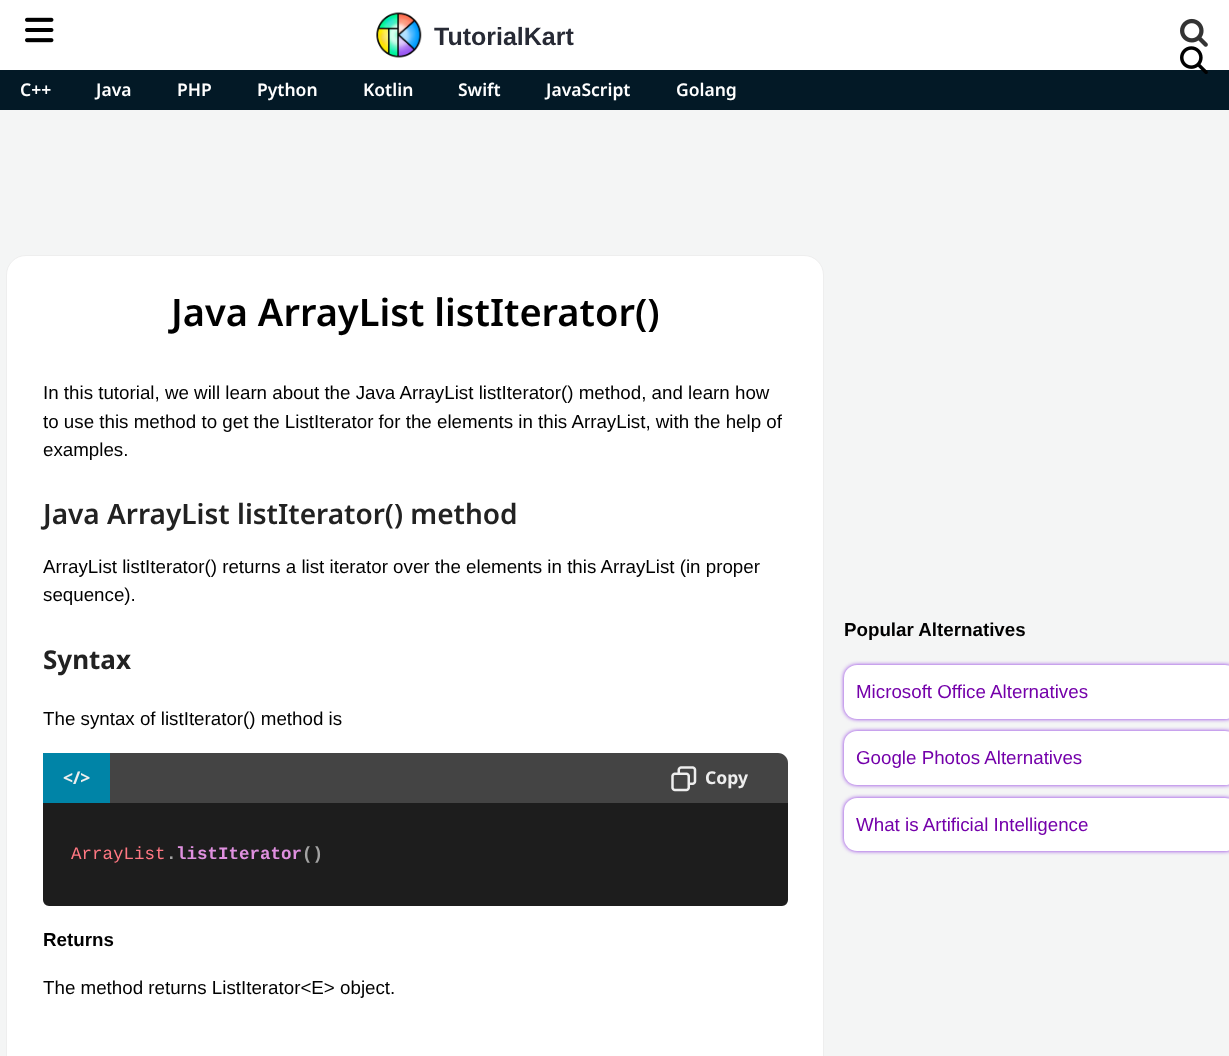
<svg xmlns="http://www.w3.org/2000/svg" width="1229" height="1056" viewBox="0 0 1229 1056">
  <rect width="100%" height="100%" fill="#f4f5f5"/>
  <path d="M0 0h1229v70H0z" fill="#fff"/>
  <image x="25" y="17" width="29" height="26" href="img/1.png"/>
  <image x="376" y="12" width="46" height="46" href="img/2.png"/>
  <image x="1180" y="18" width="28" height="29" href="img/3.png"/>
  <path d="M0 70h1229v40H0z" fill="#031926"/>
  <image x="1180" y="46" width="28" height="28" href="img/4.png"/>
  <rect x="6.5" y="255.5" width="817" height="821" rx="19.5" fill="#fff" stroke="#eee"/>
  <path d="M53 753H778C783.5 753 788 757.5 788 763V803H43V763C43 757.5 47.5 753 53 753Z" fill="#444"/>
  <path d="M43 753h67v50H43z" fill="#0084a7"/>
  <image x="671" y="766" width="26" height="26" href="img/5.png"/>
  <path d="M44.5 804.5H786.5V900C786.5 902.5 784.5 904.5 782 904.5H49C46.5 904.5 44.5 902.5 44.5 900Z" fill="#1d1d1d" stroke="#1d1d1d" stroke-width="3"/>
  <rect x="844" y="665" width="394" height="54" rx="13" fill="#8a2be2" filter="blur(2px)"/>
  <rect x="844" y="665" width="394" height="54" rx="13" fill="#fff"/>
  <rect x="844" y="731" width="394" height="54" rx="13" fill="#8a2be2" filter="blur(2px)"/>
  <rect x="844" y="731" width="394" height="54" rx="13" fill="#fff"/>
  <rect x="844" y="798" width="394" height="53" rx="13" fill="#8a2be2" filter="blur(2px)"/>
  <rect x="844" y="798" width="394" height="53" rx="13" fill="#fff"/>
  <text x="434" y="45" font-family="Liberation Sans" font-size="25" font-weight="bold" fill="#272a35">TutorialKart</text>
  <g font-family="Noto Sans" font-size="17.5" font-weight="600" fill="#fff">
    <text x="20" y="96">C++</text>
    <text x="96" y="96">Java</text>
    <text x="177" y="96">PHP</text>
    <text x="257" y="96">Python</text>
    <text x="363" y="96">Kotlin</text>
    <text x="458" y="96">Swift</text>
    <text x="546" y="96">JavaScript</text>
    <text x="676" y="96">Golang</text>
  </g>
  <text x="171" y="326" font-family="Noto Sans" font-size="38" font-weight="600" fill="#000">Java ArrayList listIterator()</text>
  <g font-family="Liberation Sans" font-size="18.75" fill="#000">
    <text x="43" y="399">In this tutorial, we will learn about the Java ArrayList listIterator() method, and learn how</text>
    <text x="43" y="428">to use this method to get the ListIterator for the elements in this ArrayList, with the help of</text>
    <text x="43" y="456">examples.</text>
  </g>
  <text x="43" y="524" font-family="Noto Sans" font-size="28" font-weight="600" fill="#222">Java ArrayList listIterator() method</text>
  <g font-family="Liberation Sans" font-size="18.75" fill="#000">
    <text x="43" y="573">ArrayList listIterator() returns a list iterator over the elements in this ArrayList (in proper</text>
    <text x="43" y="601">sequence).</text>
  </g>
  <text x="43" y="669" font-family="Noto Sans" font-size="26" font-weight="bold" fill="#222">Syntax</text>
  <text x="43" y="725" font-family="Liberation Sans" font-size="18.75" fill="#000">The syntax of listIterator() method is</text>
  <g font-family="Noto Sans" font-size="17.5" font-weight="bold" fill="#eee">
    <text x="63" y="784">&lt;/&gt;</text>
    <text x="705" y="784">Copy</text>
  </g>
  <text x="71" y="859" font-family="Liberation Mono" font-size="17.5" fill="#ff7883">ArrayList</text>
  <text x="166" y="859" font-family="Liberation Mono" font-size="17.5" font-weight="bold" fill="#a3a3a3">.</text>
  <text x="176" y="859" font-family="Liberation Mono" font-size="17.5" font-weight="bold" fill="#df90df">listIterator</text>
  <text x="302" y="859" font-family="Liberation Mono" font-size="17.5" font-weight="bold" fill="#a3a3a3">()</text>
  <text x="43" y="946" font-family="Liberation Sans" font-size="18.75" font-weight="bold" fill="#000">Returns</text>
  <text x="43" y="994" font-family="Liberation Sans" font-size="18.75" fill="#000">The method returns ListIterator&lt;E&gt; object.</text>
  <text x="844" y="636" font-family="Liberation Sans" font-size="18.75" font-weight="bold" fill="#000">Popular Alternatives</text>
  <g font-family="Liberation Sans" font-size="18.75" fill="#7400aa">
    <text x="856" y="698">Microsoft Office Alternatives</text>
    <text x="856" y="764">Google Photos Alternatives</text>
    <text x="856" y="831">What is Artificial Intelligence</text>
  </g>
</svg>
